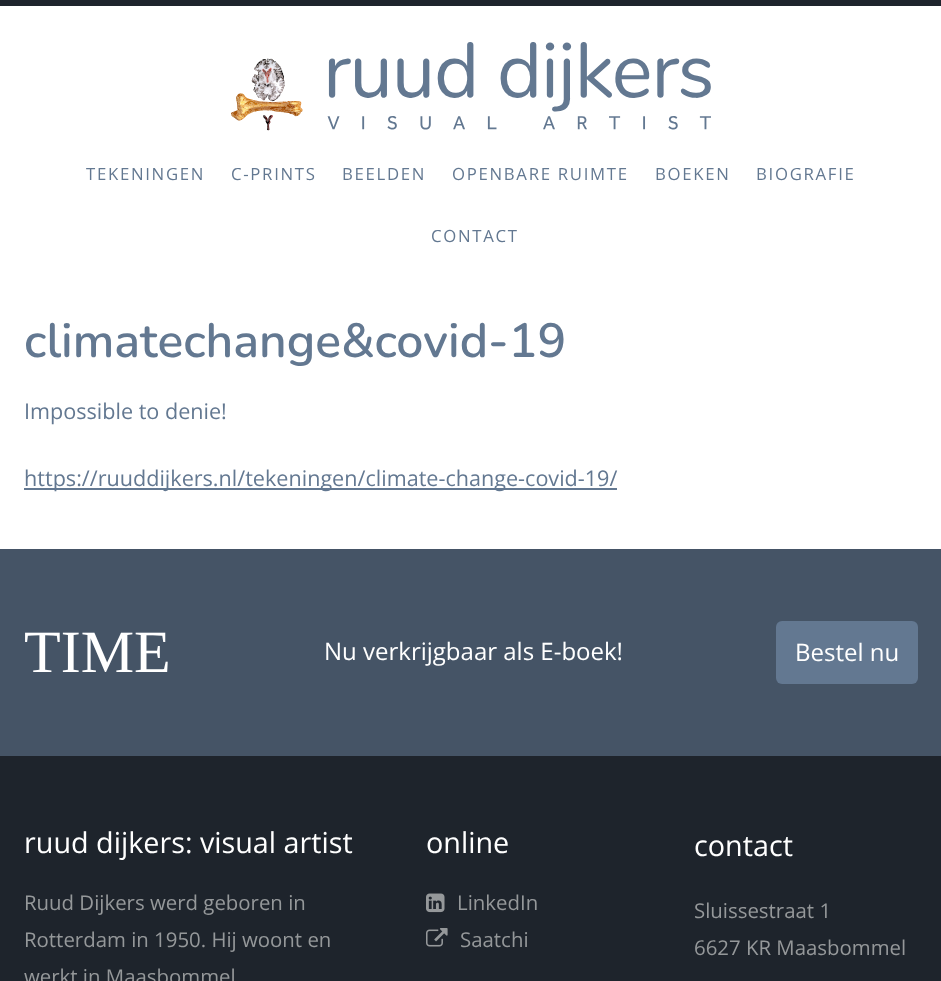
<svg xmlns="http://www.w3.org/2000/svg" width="941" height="981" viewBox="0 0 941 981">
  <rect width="100%" height="100%" fill="#fff"/>
  <path d="M0 0h941v6H0z" fill="#1e242c"/>
  <image x="231" y="42" width="480" height="89" href="img/1.png"/>
  <path d="M24 488h593v2H24z" fill="#637891"/>
  <path d="M0 549h941v207H0z" fill="#455466"/>
  <rect x="776" y="621" width="142" height="63" rx="6" fill="#637891"/>
  <path d="M0 756h941v225H0z" fill="#1e242c"/>
  <image x="426" y="893" width="19" height="20" href="img/2.png"/>
  <image x="426" y="928" width="22" height="19" href="img/3.png"/>
  <g font-family="Open Sans" font-size="16.75" letter-spacing="1.7" fill="#637891">
    <text x="86" y="180">TEKENINGEN</text>
    <text x="231" y="180">C-PRINTS</text>
    <text x="342" y="180">BEELDEN</text>
    <text x="452" y="180">OPENBARE RUIMTE</text>
    <text x="655" y="180">BOEKEN</text>
    <text x="756" y="180">BIOGRAFIE</text>
    <text x="431" y="242">CONTACT</text>
  </g>
  <text x="24" y="357" font-family="Nunito" font-size="48" font-weight="200" fill="#637891">climatechange&amp;covid-19</text>
  <g font-family="Open Sans" font-size="21.6" fill="#637891">
    <text x="24" y="419">Impossible to denie!</text>
    <text x="24" y="486">https://ruuddijkers.nl/tekeningen/climate-change-covid-19/</text>
  </g>
  <text x="24" y="672" font-family="Liberation Serif" font-size="60" fill="#fff">TIME</text>
  <g font-family="Open Sans" font-size="24" fill="#fff">
    <text x="324" y="660">Nu verkrijgbaar als E-boek!</text>
    <text x="795" y="661">Bestel nu</text>
  </g>
  <text x="24" y="853" font-family="Open Sans" font-size="28.75" fill="#fff">ruud dijkers: visual artist</text>
  <g font-family="Open Sans" font-size="20.4" fill="#95989a">
    <text x="24" y="910">Ruud Dijkers werd geboren in</text>
    <text x="24" y="947">Rotterdam in 1950. Hij woont en</text>
    <text x="24" y="984">werkt in Maasbommel</text>
  </g>
  <text x="426" y="853" font-family="Open Sans" font-size="28.75" fill="#fff">online</text>
  <g font-family="Open Sans" font-size="20.4" fill="#95989a">
    <text x="457" y="910">LinkedIn</text>
    <text x="460" y="947">Saatchi</text>
  </g>
  <text x="694" y="856" font-family="Open Sans" font-size="28.75" fill="#fff">contact</text>
  <g font-family="Open Sans" font-size="20.4" fill="#95989a">
    <text x="694" y="918">Sluissestraat 1</text>
    <text x="694" y="955">6627 KR Maasbommel</text>
  </g>
</svg>
